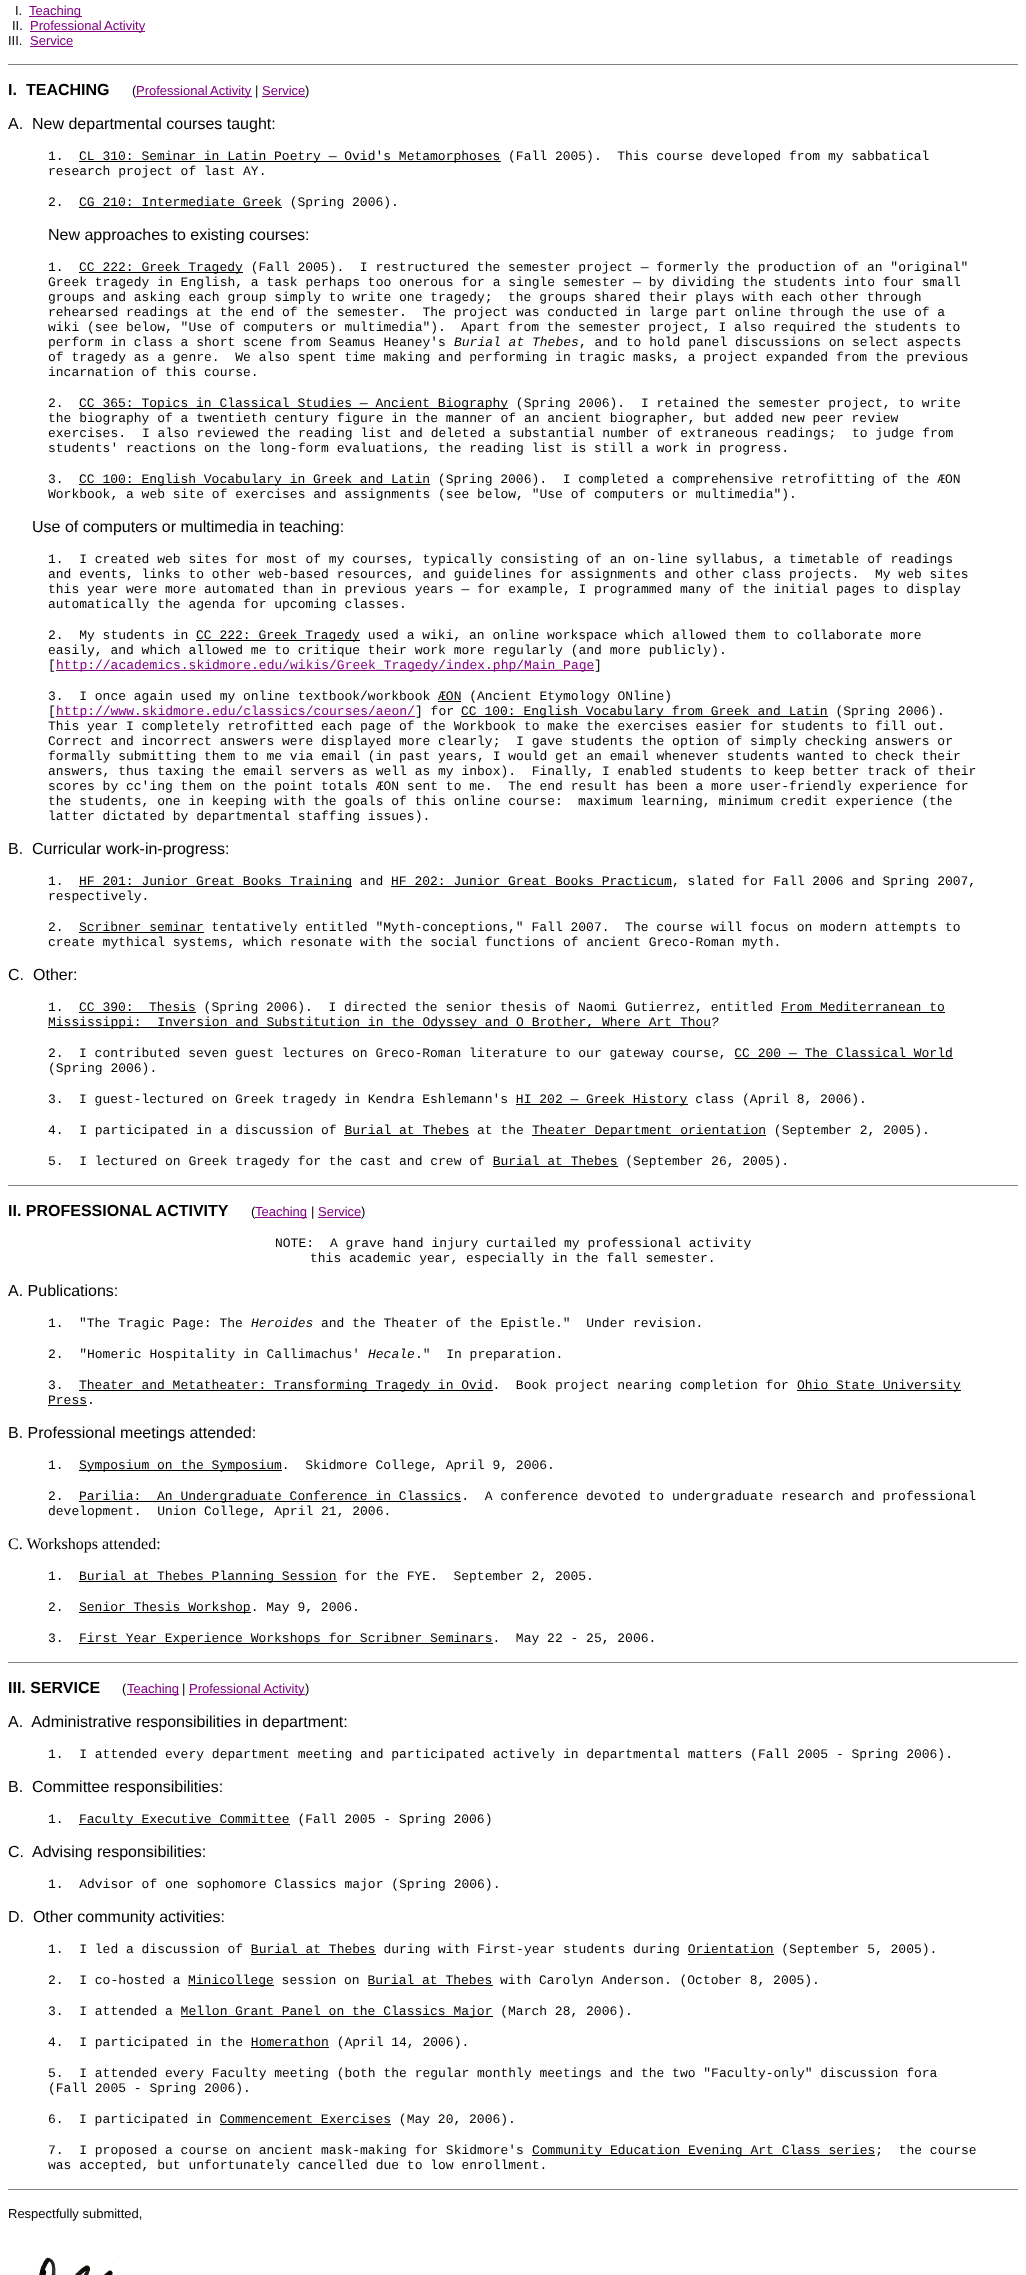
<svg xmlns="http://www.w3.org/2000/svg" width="1026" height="2275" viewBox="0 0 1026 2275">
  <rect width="100%" height="100%" fill="#fff"/>
  <path d="M29 16h53v1H29z" fill="#800080"/>
  <path d="M30 31h115v1H30z" fill="#800080"/>
  <path d="M30 46h43v1H30z" fill="#800080"/>
  <path d="M8 64h1010v1H8z" fill="#808080"/>
  <path d="M136 96h116v1H136z" fill="#800080"/>
  <path d="M262 96h43v1H262z" fill="#800080"/>
  <path d="M79 161h422v1H79z" fill="#000"/>
  <path d="M79 207h203v1H79z" fill="#000"/>
  <path d="M79 272h164v1H79z" fill="#000"/>
  <path d="M79 408h429v1H79z" fill="#000"/>
  <path d="M79 484h351v1H79z" fill="#000"/>
  <path d="M196 640h164v1H196z" fill="#000"/>
  <path d="M56 670h538v1H56z" fill="#800080"/>
  <path d="M438 701h23v1H438z" fill="#000"/>
  <path d="M56 716h359v1H56z" fill="#800080"/>
  <path d="M461 716h367v1H461z" fill="#000"/>
  <path d="M79 886h273v1H79z" fill="#000"/>
  <path d="M391 886h281v1H391z" fill="#000"/>
  <path d="M79 932h125v1H79z" fill="#000"/>
  <path d="M79 1012h117v1H79z" fill="#000"/>
  <path d="M781 1012h164v1H781z" fill="#000"/>
  <path d="M48 1027h663v1H48z" fill="#000"/>
  <path d="M735 1058h218v1H735z" fill="#000"/>
  <path d="M516 1104h172v1H516z" fill="#000"/>
  <path d="M344 1135h125v1H344z" fill="#000"/>
  <path d="M532 1135h234v1H532z" fill="#000"/>
  <path d="M493 1166h125v1H493z" fill="#000"/>
  <path d="M8 1185h1010v1H8z" fill="#808080"/>
  <path d="M255 1217h52v1H255z" fill="#800080"/>
  <path d="M318 1217h43v1H318z" fill="#800080"/>
  <path d="M79 1390h414v1H79z" fill="#000"/>
  <path d="M797 1390h164v1H797z" fill="#000"/>
  <path d="M48 1405h39v1H48z" fill="#000"/>
  <path d="M79 1470h203v1H79z" fill="#000"/>
  <path d="M79 1501h382v1H79z" fill="#000"/>
  <path d="M79 1581h258v1H79z" fill="#000"/>
  <path d="M79 1612h172v1H79z" fill="#000"/>
  <path d="M79 1643h414v1H79z" fill="#000"/>
  <path d="M8 1662h1010v1H8z" fill="#808080"/>
  <path d="M127 1694h52v1H127z" fill="#800080"/>
  <path d="M189 1694h116v1H189z" fill="#800080"/>
  <path d="M79 1824h211v1H79z" fill="#000"/>
  <path d="M251 1954h125v1H251z" fill="#000"/>
  <path d="M688 1954h86v1H688z" fill="#000"/>
  <path d="M188 1985h86v1H188z" fill="#000"/>
  <path d="M368 1985h125v1H368z" fill="#000"/>
  <path d="M181 2016h312v1H181z" fill="#000"/>
  <path d="M251 2047h78v1H251z" fill="#000"/>
  <path d="M220 2124h171v1H220z" fill="#000"/>
  <path d="M532 2155h343v1H532z" fill="#000"/>
  <path d="M8 2189h1010v1H8z" fill="#808080"/>
  <image x="39" y="2257" width="74" height="18" href="img/1.png"/>
  <text x="15" y="15" font-family="Liberation Sans" font-size="13" fill="#000">I.</text>
  <text x="29" y="15" font-family="Liberation Sans" font-size="13" fill="#800080">Teaching</text>
  <text x="12" y="30" font-family="Liberation Sans" font-size="13" fill="#000">II.</text>
  <g font-family="Liberation Sans" font-size="13" fill="#800080">
    <text x="30" y="30">Professional</text>
    <text x="104" y="30">Activity</text>
  </g>
  <text x="8" y="45" font-family="Liberation Sans" font-size="13" fill="#000">III.</text>
  <text x="30" y="45" font-family="Liberation Sans" font-size="13" fill="#800080">Service</text>
  <g font-family="Liberation Sans" font-size="16" font-weight="bold" fill="#000">
    <text x="8" y="95">I.</text>
    <text x="26" y="95">TEACHING</text>
  </g>
  <text x="132" y="95" font-family="Liberation Sans" font-size="13" fill="#000">(</text>
  <g font-family="Liberation Sans" font-size="13" fill="#800080">
    <text x="136" y="95">Professional</text>
    <text x="210" y="95">Activity</text>
  </g>
  <text x="255" y="95" font-family="Liberation Sans" font-size="13" fill="#000">|</text>
  <text x="262" y="95" font-family="Liberation Sans" font-size="13" fill="#800080">Service</text>
  <text x="305" y="95" font-family="Liberation Sans" font-size="13" fill="#000">)</text>
  <text x="8" y="129" font-family="Liberation Sans" font-size="16" fill="#000" xml:space="preserve">A.  New departmental courses taught:</text>
  <g font-family="Liberation Mono" font-size="13" fill="#000">
    <text x="48" y="160">1.</text>
    <text x="79" y="160" xml:space="preserve">CL 310: Seminar in Latin Poetry — Ovid's Metamorphoses (Fall 2005).  This course developed from my sabbatical</text>
    <text x="48" y="175">research project of last AY.</text>
    <text x="48" y="206">2.</text>
    <text x="79" y="206">CG 210: Intermediate Greek (Spring 2006).</text>
  </g>
  <text x="48" y="240" font-family="Liberation Sans" font-size="16" fill="#000">New approaches to existing courses:</text>
  <g font-family="Liberation Mono" font-size="13" fill="#000">
    <text x="48" y="271">1.</text>
    <text x="79" y="271" xml:space="preserve">CC 222: Greek Tragedy (Fall 2005).  I restructured the semester project — formerly the production of an "original"</text>
    <text x="48" y="286">Greek tragedy in English, a task perhaps too onerous for a single semester — by dividing the students into four small</text>
    <text x="48" y="301">groups and asking each group simply to write one tragedy;</text>
    <text x="508" y="301">the groups shared their plays with each other through</text>
    <text x="48" y="316" xml:space="preserve">rehearsed readings at the end of the semester.  The project was conducted in large part online through the use of a</text>
    <text x="48" y="331">wiki (see below, "Use of computers or multimedia").</text>
    <text x="461" y="331">Apart from the semester project, I also required the students to</text>
    <text x="48" y="346">perform in class a short scene from Seamus Heaney's</text>
  </g>
  <text x="454" y="346" font-family="Liberation Mono" font-size="13" font-style="italic" fill="#000">Burial at Thebes</text>
  <g font-family="Liberation Mono" font-size="13" fill="#000">
    <text x="579" y="346">, and to hold panel discussions on select aspects</text>
    <text x="48" y="361" xml:space="preserve">of tragedy as a genre.  We also spent time making and performing in tragic masks, a project expanded from the previous</text>
    <text x="48" y="376">incarnation of this course.</text>
    <text x="48" y="407">2.</text>
    <text x="79" y="407">CC 365: Topics in Classical Studies — Ancient Biography (Spring 2006).</text>
    <text x="641" y="407">I retained the semester project, to write</text>
    <text x="48" y="422">the biography of a twentieth century figure in the manner of an ancient biographer, but added new peer review</text>
    <text x="48" y="437">exercises.</text>
    <text x="142" y="437" xml:space="preserve">I also reviewed the reading list and deleted a substantial number of extraneous readings;  to judge from</text>
    <text x="48" y="452">students' reactions on the long-form evaluations, the reading list is still a work in progress.</text>
    <text x="48" y="483">3.</text>
    <text x="79" y="483" xml:space="preserve">CC 100: English Vocabulary in Greek and Latin (Spring 2006).  I completed a comprehensive retrofitting of the ÆON</text>
    <text x="48" y="498">Workbook, a web site of exercises and assignments (see below, "Use of computers or multimedia").</text>
  </g>
  <text x="32" y="532" font-family="Liberation Sans" font-size="16" fill="#000">Use of computers or multimedia in teaching:</text>
  <g font-family="Liberation Mono" font-size="13" fill="#000">
    <text x="48" y="563" xml:space="preserve">1.  I created web sites for most of my courses, typically consisting of an on-line syllabus, a timetable of readings</text>
    <text x="48" y="578" xml:space="preserve">and events, links to other web-based resources, and guidelines for assignments and other class projects.  My web sites</text>
    <text x="48" y="593">this year were more automated than in previous years — for example, I programmed many of the initial pages to display</text>
    <text x="48" y="608">automatically the agenda for upcoming classes.</text>
    <text x="48" y="639" xml:space="preserve">2.  My students in</text>
    <text x="196" y="639">CC 222: Greek Tragedy used a wiki, an online workspace which allowed them to collaborate more</text>
    <text x="48" y="654">easily, and which allowed me to critique their work more regularly (and more publicly).</text>
    <text x="48" y="669">[</text>
  </g>
  <text x="56" y="669" font-family="Liberation Mono" font-size="13" fill="#800080">http://academics.skidmore.edu/wikis/Greek_Tragedy/index.php/Main_Page</text>
  <g font-family="Liberation Mono" font-size="13" fill="#000">
    <text x="594" y="669">]</text>
    <text x="48" y="700" xml:space="preserve">3.  I once again used my online textbook/workbook ÆON (Ancient Etymology ONline)</text>
    <text x="48" y="715">[</text>
  </g>
  <text x="56" y="715" font-family="Liberation Mono" font-size="13" fill="#800080">http://www.skidmore.edu/classics/courses/aeon/</text>
  <g font-family="Liberation Mono" font-size="13" fill="#000">
    <text x="415" y="715">] for</text>
    <text x="461" y="715">CC 100: English Vocabulary from Greek and Latin (Spring 2006).</text>
    <text x="48" y="730">This year I completely retrofitted each page of the Workbook to make the exercises easier for students to fill out.</text>
    <text x="48" y="745" xml:space="preserve">Correct and incorrect answers were displayed more clearly;  I gave students the option of simply checking answers or</text>
    <text x="48" y="760">formally submitting them to me via email (in past years, I would get an email whenever students wanted to check their</text>
    <text x="48" y="775" xml:space="preserve">answers, thus taxing the email servers as well as my inbox).  Finally, I enabled students to keep better track of their</text>
    <text x="48" y="790" xml:space="preserve">scores by cc'ing them on the point totals ÆON sent to me.  The end result has been a more user-friendly experience for</text>
    <text x="48" y="805">the students, one in keeping with the goals of this online course:</text>
    <text x="578" y="805">maximum learning, minimum credit experience (the</text>
    <text x="48" y="820">latter dictated by departmental staffing issues).</text>
  </g>
  <text x="8" y="854" font-family="Liberation Sans" font-size="16" fill="#000" xml:space="preserve">B.  Curricular work-in-progress:</text>
  <g font-family="Liberation Mono" font-size="13" fill="#000">
    <text x="48" y="885">1.</text>
    <text x="79" y="885">HF 201: Junior Great Books Training and HF 202: Junior Great Books Practicum, slated for Fall 2006 and Spring 2007,</text>
    <text x="48" y="900">respectively.</text>
    <text x="48" y="931">2.</text>
    <text x="79" y="931" xml:space="preserve">Scribner seminar tentatively entitled "Myth-conceptions," Fall 2007.  The course will focus on modern attempts to</text>
    <text x="48" y="946">create mythical systems, which resonate with the social functions of ancient Greco-Roman myth.</text>
  </g>
  <g font-family="Liberation Sans" font-size="16" fill="#000">
    <text x="8" y="980">C.</text>
    <text x="33" y="980">Other:</text>
  </g>
  <g font-family="Liberation Mono" font-size="13" fill="#000">
    <text x="48" y="1011">1.</text>
    <text x="79" y="1011">CC 390:</text>
    <text x="149" y="1011" xml:space="preserve">Thesis (Spring 2006).  I directed the senior thesis of Naomi Gutierrez, entitled From Mediterranean to</text>
    <text x="48" y="1026" xml:space="preserve">Mississippi:  Inversion and Substitution in the Odyssey and O Brother, Where Art Thou</text>
  </g>
  <text x="711" y="1026" font-family="Liberation Mono" font-size="13" font-style="italic" fill="#000">?</text>
  <g font-family="Liberation Mono" font-size="13" fill="#000">
    <text x="48" y="1057">2.</text>
    <text x="79" y="1057">I contributed seven guest lectures on Greco-Roman literature to our gateway course, CC 200 — The Classical World</text>
    <text x="48" y="1072">(Spring 2006).</text>
    <text x="48" y="1103">3.</text>
    <text x="79" y="1103">I guest-lectured on Greek tragedy in Kendra Eshlemann's HI 202 —</text>
    <text x="586" y="1103">Greek History class (April 8, 2006).</text>
    <text x="48" y="1134" xml:space="preserve">4.  I participated in a discussion of Burial at Thebes at the</text>
    <text x="532" y="1134">Theater Department orientation (September 2, 2005).</text>
    <text x="48" y="1165" xml:space="preserve">5.  I lectured on Greek tragedy for the cast and crew of Burial at Thebes (September 26, 2005).</text>
  </g>
  <text x="8" y="1216" font-family="Liberation Sans" font-size="16" font-weight="bold" fill="#000">II. PROFESSIONAL ACTIVITY</text>
  <text x="251" y="1216" font-family="Liberation Sans" font-size="13" fill="#000">(</text>
  <text x="255" y="1216" font-family="Liberation Sans" font-size="13" fill="#800080">Teaching</text>
  <text x="311" y="1216" font-family="Liberation Sans" font-size="13" fill="#000">|</text>
  <text x="318" y="1216" font-family="Liberation Sans" font-size="13" fill="#800080">Service</text>
  <text x="361" y="1216" font-family="Liberation Sans" font-size="13" fill="#000">)</text>
  <g font-family="Liberation Mono" font-size="13" fill="#000">
    <text x="275" y="1247">NOTE:</text>
    <text x="330" y="1247">A grave hand injury curtailed my professional activity</text>
    <text x="310" y="1262">this academic year, especially in the fall semester.</text>
  </g>
  <text x="8" y="1296" font-family="Liberation Sans" font-size="16" fill="#000">A. Publications:</text>
  <g font-family="Liberation Mono" font-size="13" fill="#000">
    <text x="48" y="1327">1.</text>
    <text x="79" y="1327">"The Tragic Page: The</text>
  </g>
  <text x="251" y="1327" font-family="Liberation Mono" font-size="13" font-style="italic" fill="#000">Heroides</text>
  <g font-family="Liberation Mono" font-size="13" fill="#000">
    <text x="321" y="1327" xml:space="preserve">and the Theater of the Epistle."  Under revision.</text>
    <text x="48" y="1358" xml:space="preserve">2.  "Homeric Hospitality in Callimachus'</text>
  </g>
  <text x="368" y="1358" font-family="Liberation Mono" font-size="13" font-style="italic" fill="#000">Hecale</text>
  <g font-family="Liberation Mono" font-size="13" fill="#000">
    <text x="415" y="1358" xml:space="preserve">."  In preparation.</text>
    <text x="48" y="1389">3.</text>
    <text x="79" y="1389" xml:space="preserve">Theater and Metatheater: Transforming Tragedy in Ovid.  Book project nearing completion for</text>
    <text x="797" y="1389">Ohio State University</text>
    <text x="48" y="1404">Press.</text>
  </g>
  <text x="8" y="1438" font-family="Liberation Sans" font-size="16" fill="#000">B. Professional meetings attended:</text>
  <g font-family="Liberation Mono" font-size="13" fill="#000">
    <text x="48" y="1469">1.</text>
    <text x="79" y="1469" xml:space="preserve">Symposium on the Symposium.  Skidmore College, April 9, 2006.</text>
    <text x="48" y="1500">2.</text>
    <text x="79" y="1500">Parilia:</text>
    <text x="157" y="1500" xml:space="preserve">An Undergraduate Conference in Classics.  A conference devoted to undergraduate research and professional</text>
    <text x="48" y="1515" xml:space="preserve">development.  Union College, April 21, 2006.</text>
  </g>
  <text x="8" y="1549" font-family="Liberation Serif" font-size="16" fill="#000">C. Workshops attended:</text>
  <g font-family="Liberation Mono" font-size="13" fill="#000">
    <text x="48" y="1580">1.</text>
    <text x="79" y="1580" xml:space="preserve">Burial at Thebes Planning Session for the FYE.  September 2, 2005.</text>
    <text x="48" y="1611">2.</text>
    <text x="79" y="1611">Senior Thesis Workshop. May 9, 2006.</text>
    <text x="48" y="1642">3.</text>
    <text x="79" y="1642" xml:space="preserve">First Year Experience Workshops for Scribner Seminars.  May 22 - 25, 2006.</text>
  </g>
  <text x="8" y="1693" font-family="Liberation Sans" font-size="16" font-weight="bold" fill="#000">III. SERVICE</text>
  <text x="122" y="1693" font-family="Liberation Sans" font-size="13" fill="#000">(</text>
  <text x="127" y="1693" font-family="Liberation Sans" font-size="13" fill="#800080">Teaching</text>
  <text x="182" y="1693" font-family="Liberation Sans" font-size="13" fill="#000">|</text>
  <text x="189" y="1693" font-family="Liberation Sans" font-size="13" fill="#800080">Professional Activity</text>
  <text x="305" y="1693" font-family="Liberation Sans" font-size="13" fill="#000">)</text>
  <text x="8" y="1727" font-family="Liberation Sans" font-size="16" fill="#000" xml:space="preserve">A.  Administrative responsibilities in department:</text>
  <text x="48" y="1758" font-family="Liberation Mono" font-size="13" fill="#000" xml:space="preserve">1.  I attended every department meeting and participated actively in departmental matters (Fall 2005 - Spring 2006).</text>
  <text x="8" y="1792" font-family="Liberation Sans" font-size="16" fill="#000" xml:space="preserve">B.  Committee responsibilities:</text>
  <g font-family="Liberation Mono" font-size="13" fill="#000">
    <text x="48" y="1823">1.</text>
    <text x="79" y="1823">Faculty Executive Committee (Fall 2005 - Spring 2006)</text>
  </g>
  <text x="8" y="1857" font-family="Liberation Sans" font-size="16" fill="#000" xml:space="preserve">C.  Advising responsibilities:</text>
  <text x="48" y="1888" font-family="Liberation Mono" font-size="13" fill="#000" xml:space="preserve">1.  Advisor of one sophomore Classics major (Spring 2006).</text>
  <text x="8" y="1922" font-family="Liberation Sans" font-size="16" fill="#000" xml:space="preserve">D.  Other community activities:</text>
  <g font-family="Liberation Mono" font-size="13" fill="#000">
    <text x="48" y="1953" xml:space="preserve">1.  I led a discussion of Burial at Thebes during with First-year students during Orientation (September 5, 2005).</text>
    <text x="48" y="1984" xml:space="preserve">2.  I co-hosted a</text>
    <text x="188" y="1984">Minicollege session on Burial at Thebes with Carolyn Anderson. (October 8, 2005).</text>
    <text x="48" y="2015" xml:space="preserve">3.  I attended a Mellon</text>
    <text x="235" y="2015">Grant Panel on the Classics Major (March 28, 2006).</text>
    <text x="48" y="2046" xml:space="preserve">4.  I participated in the Homerathon (April 14, 2006).</text>
    <text x="48" y="2077" xml:space="preserve">5.  I attended every Faculty meeting (both the regular monthly meetings and the two "Faculty-only" discussion fora</text>
    <text x="48" y="2092">(Fall 2005 - Spring 2006).</text>
    <text x="48" y="2123">6.</text>
    <text x="79" y="2123">I participated in Commencement Exercises (May 20, 2006).</text>
    <text x="48" y="2154" xml:space="preserve">7.  I proposed a course on ancient mask-making for Skidmore's</text>
    <text x="532" y="2154" xml:space="preserve">Community Education Evening Art Class series;  the course</text>
    <text x="48" y="2169">was accepted, but unfortunately cancelled due to low enrollment.</text>
  </g>
  <text x="8" y="2218" font-family="Liberation Sans" font-size="13" fill="#000">Respectfully submitted,</text>
</svg>
